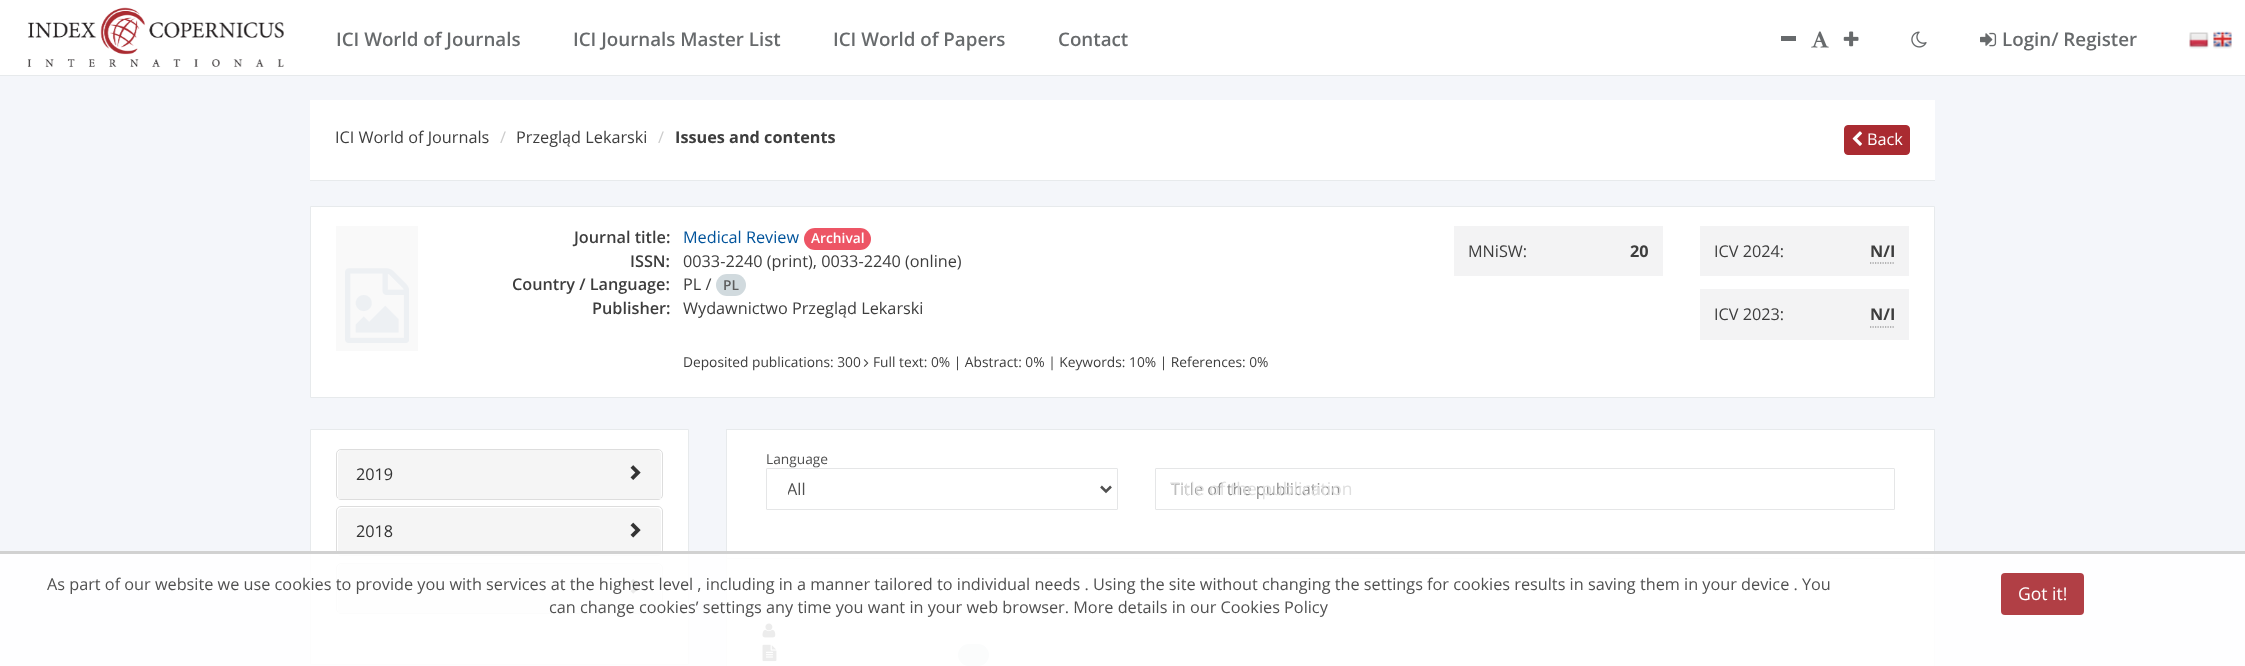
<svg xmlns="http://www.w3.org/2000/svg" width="2245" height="666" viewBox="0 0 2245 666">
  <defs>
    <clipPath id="clip1"><path d="M788 476h293v25H788z"/></clipPath>
  </defs>
  <rect width="100%" height="100%" fill="#f4f6fa"/>
  <path d="M0 0h2245v75H0z" fill="#fff"/>
  <path d="M0 75h2245v1H0z" fill="#e7eaec"/>
  <image x="27" y="7" width="257" height="60" href="img/1.png"/>
  <path d="M1781 36h15v5H1781z" fill="#676a6c"/>
  <image x="1811" y="31" width="18" height="17" href="img/2.png"/>
  <image x="1843" y="31" width="16" height="16" href="img/3.png"/>
  <image x="1911" y="31" width="16" height="17" href="img/4.png"/>
  <image x="1980" y="32" width="17" height="15" href="img/5.png"/>
  <image x="2189" y="32" width="20" height="17" href="img/6.png"/>
  <image x="2213" y="31" width="19" height="18" href="img/7.png"/>
  <path d="M310 100h1625v80H310z" fill="#fff"/>
  <path d="M310 180h1625v1H310z" fill="#e7eaec"/>
  <rect x="1844.5" y="125.5" width="65" height="29" rx="3.5" fill="#aa2b31" stroke="#aa2b31"/>
  <image x="1852" y="131" width="10" height="15" href="img/8.png"/>
  <path d="M310.5 206.5h1624v191H310.5z" fill="#fff" stroke="#e7eaec"/>
  <path d="M336 226h82v125H336z" fill="#f9f9f9"/>
  <image x="345" y="268" width="64" height="75" href="img/9.png"/>
  <rect x="804" y="228" width="67" height="22" rx="11" fill="#ed5565"/>
  <rect x="716" y="274" width="30" height="22" rx="11" fill="#d1dade"/>
  <path d="M1454 226h209v50H1454z" fill="#f3f3f4"/>
  <path d="M1700 226h209v50H1700z" fill="#f3f3f4"/>
  <path d="M1870 263H1895" fill="none" stroke="#777" stroke-width="1.2" stroke-dasharray="1.25 1.25"/>
  <path d="M1700 289h209v51H1700z" fill="#f3f3f4"/>
  <path d="M1870 327H1895" fill="none" stroke="#777" stroke-width="1.2" stroke-dasharray="1.25 1.25"/>
  <image x="863" y="359" width="6" height="8" href="img/10.png"/>
  <path d="M310.5 429.5h378v235H310.5z" fill="#fff" stroke="#e7eaec"/>
  <rect x="336.5" y="449.5" width="326" height="50" rx="4.5" fill="none" stroke="#ddd"/>
  <path d="M342 450H657C659 450 661 452 661 454V499H338V454C338 452 340 450 342 450Z" fill="#f5f5f5"/>
  <image x="630" y="465" width="11" height="15" href="img/11.png"/>
  <rect x="336.5" y="506.5" width="326" height="49" rx="4.5" fill="none" stroke="#ddd"/>
  <path d="M342 508H657C659 508 661 510 661 512V555H338V512C338 510 340 508 342 508Z" fill="#f5f5f5"/>
  <image x="630" y="522" width="11" height="16" href="img/12.png"/>
  <rect x="336.5" y="563.5" width="326" height="50" rx="4.5" fill="none" stroke="#ddd"/>
  <path d="M342 564H657C659 564 661 566 661 568V613H338V568C338 566 340 564 342 564Z" fill="#f5f5f5"/>
  <image x="630" y="579" width="11" height="15" href="img/13.png"/>
  <path d="M727 430h1207v128H727z" fill="#fff"/>
  <path d="M726 429h1209v1H726z" fill="#e7eaec"/>
  <path d="M1934 429h1v129H1934z" fill="#e7eaec"/>
  <path d="M726 429h1v129H726z" fill="#e7eaec"/>
  <rect x="766.5" y="468.5" width="351" height="41" rx="0.5" fill="none" stroke="#e5e6e7"/>
  <path d="M1101 486.5L1106 491.5L1111 486.5" fill="none" stroke="#505050" stroke-width="2.5"/>
  <rect x="1155.5" y="468.5" width="739" height="41" rx="0.5" fill="none" stroke="#e5e6e7"/>
  <path d="M726.5 558.5h1208v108H726.5z" fill="#fff" stroke="#e7eaec"/>
  <image x="762" y="623" width="14" height="15" href="img/14.png"/>
  <image x="762" y="644" width="15" height="18" href="img/15.png"/>
  <rect x="958" y="644" width="31" height="22" rx="11" fill="#d1dade"/>
  <path d="M0 551h2245v115H0z" fill="#ffffffe6"/>
  <path d="M0 551h2245v3H0z" fill="#cccccce6"/>
  <rect x="2001" y="573" width="83" height="42" rx="4" fill="#b13f45"/>
  <g font-family="Open Sans" font-size="18.75" font-weight="600" fill="#676a6c">
    <text x="336" y="46">ICI World of Journals</text>
    <text x="573" y="46">ICI Journals Master List</text>
    <text x="833" y="46">ICI World of Papers</text>
    <text x="1058" y="46">Contact</text>
    <text x="2002" y="46">Login/ Register</text>
  </g>
  <text x="335" y="143" font-family="Open Sans" font-size="16.25" fill="#3d3d3d">ICI World of Journals</text>
  <text x="500" y="143" font-family="Open Sans" font-size="16.25" fill="#ccc">/</text>
  <text x="516" y="143" font-family="Open Sans" font-size="16.25" fill="#3d3d3d">Przegląd Lekarski</text>
  <text x="658" y="143" font-family="Open Sans" font-size="16.25" fill="#ccc">/</text>
  <text x="675" y="143" font-family="Open Sans" font-size="16.25" font-weight="bold" fill="#3d3d3d">Issues and contents</text>
  <text x="1867" y="145" font-family="Open Sans" font-size="16.25" fill="#fff">Back</text>
  <text x="574" y="243" font-family="Open Sans" font-size="16.25" font-weight="600" fill="#3d3d3d">Journal title:</text>
  <text x="683" y="243" font-family="Open Sans" font-size="16.25" fill="#00539b">Medical Review</text>
  <text x="811" y="243" font-family="Open Sans" font-size="13.75" font-weight="600" fill="#fff">Archival</text>
  <text x="630" y="267" font-family="Open Sans" font-size="16.25" font-weight="600" fill="#3d3d3d">ISSN:</text>
  <text x="683" y="267" font-family="Open Sans" font-size="16.25" fill="#3d3d3d">0033-2240 (print), 0033-2240 (online)</text>
  <text x="512" y="290" font-family="Open Sans" font-size="16.25" font-weight="600" fill="#3d3d3d">Country / Language:</text>
  <text x="683" y="290" font-family="Open Sans" font-size="16.25" fill="#3d3d3d">PL /</text>
  <text x="723" y="290" font-family="Open Sans" font-size="13.75" font-weight="600" fill="#5e5e5e">PL</text>
  <text x="592" y="314" font-family="Open Sans" font-size="16.25" font-weight="600" fill="#3d3d3d">Publisher:</text>
  <g font-family="Open Sans" font-size="16.25" fill="#3d3d3d">
    <text x="683" y="314">Wydawnictwo Przegląd Lekarski</text>
    <text x="1468" y="257">MNiSW:</text>
  </g>
  <text x="1630" y="257" font-family="Open Sans" font-size="16.25" font-weight="bold" fill="#3d3d3d">20</text>
  <text x="1714" y="257" font-family="Open Sans" font-size="16.25" fill="#3d3d3d">ICV 2024:</text>
  <text x="1870" y="257" font-family="Open Sans" font-size="16.25" font-weight="bold" fill="#3d3d3d">N/I</text>
  <text x="1714" y="320" font-family="Open Sans" font-size="16.25" fill="#3d3d3d">ICV 2023:</text>
  <text x="1870" y="320" font-family="Open Sans" font-size="16.25" font-weight="bold" fill="#3d3d3d">N/I</text>
  <g font-family="Open Sans" font-size="13.75" fill="#3d3d3d">
    <text x="683" y="367">Deposited publications: 300</text>
    <text x="873" y="367">Full text: 0% | Abstract: 0% | Keywords: 10% | References: 0%</text>
  </g>
  <g font-family="Open Sans" font-size="16.25" fill="#333">
    <text x="356" y="480">2019</text>
    <text x="356" y="537">2018</text>
  </g>
  <text x="766" y="464" font-family="Open Sans" font-size="13.75" fill="#505050">Language</text>
  <g clip-path="url(#clip1)">
    <text x="787" y="495" font-family="Open Sans" font-size="16.25" fill="#505050">All</text>
  </g>
  <text x="1171" y="495" font-family="Open Sans" font-size="16.25" fill="#909090">Title of the publication</text>
  <text x="1170" y="495" font-family="Open Sans" font-size="17.5" fill="#dfdfdf">Title of the publication</text>
  <g font-family="Open Sans" font-size="16.25" fill="#505050">
    <text x="47" y="590">As part of our website we use cookies to provide you with services at the highest level , including in a manner tailored to individual needs . Using the site without changing the settings for cookies results in saving them in your device . You</text>
    <text x="549" y="613">can change cookies’ settings any time you want in your web browser. More details in our Cookies Policy</text>
  </g>
  <text x="2018" y="600" font-family="Open Sans" font-size="17.5" fill="#fff">Got it!</text>
</svg>
